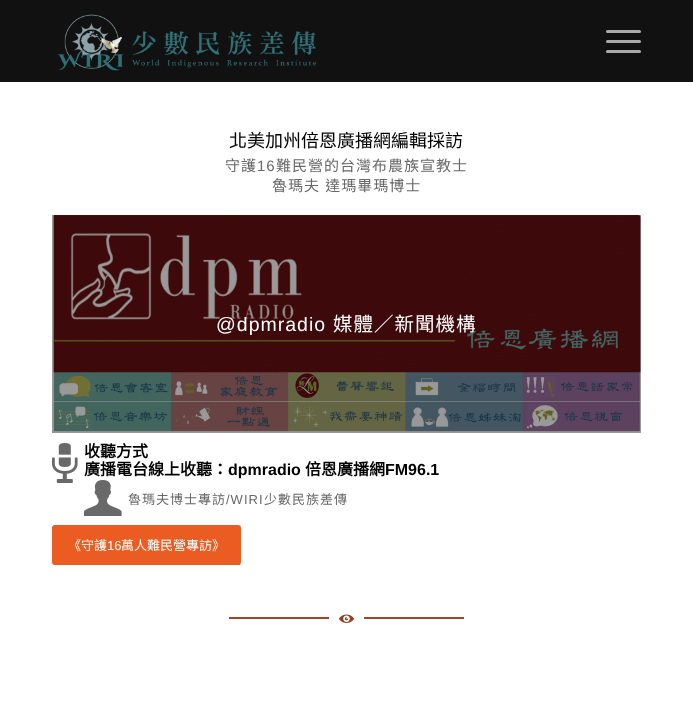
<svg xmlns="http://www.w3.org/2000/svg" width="693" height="705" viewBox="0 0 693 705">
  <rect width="100%" height="100%" fill="#fff"/>
  <path d="M0 0h693v82H0z" fill="#111"/>
  <image x="57" y="14" width="259" height="57" href="img/1.png"/>
  <rect x="606" y="40" width="35" height="3" rx="1.5" fill="#aaa"/>
  <rect x="606" y="30" width="35" height="3" rx="1.5" fill="#aaa"/>
  <rect x="606" y="50" width="35" height="3" rx="1.5" fill="#aaa"/>
  <path d="M52 215h589v218H52z" fill="#999"/>
  <image x="52" y="215" width="589" height="217" href="img/2.png"/>
  <image x="52" y="443" width="26" height="40" href="img/3.png"/>
  <image x="84" y="480" width="38" height="36" href="img/4.png"/>
  <rect x="52" y="525" width="189" height="40" rx="3" fill="#eb5c23"/>
  <path d="M54 564h186v1H54z" fill="#eb5c23"/>
  <path d="M229 617h100v2H229z" fill="#a54326"/>
  <image x="339" y="614" width="15" height="9" href="img/5.png"/>
  <path d="M364 617h100v2H364z" fill="#a54326"/>
  <text x="229" y="147" font-family="Noto Sans CJK TC" font-size="18" fill="#000">北美加州倍恩廣播網編輯採訪</text>
  <text x="225" y="171" font-family="Noto Sans CJK TC" font-size="15" letter-spacing="1" fill="#696969">守護</text>
  <text x="257" y="171" font-family="Liberation Sans" font-size="15" letter-spacing="1" fill="#696969">16</text>
  <g font-family="Noto Sans CJK TC" font-size="15" letter-spacing="1" fill="#696969">
    <text x="276" y="171">難民營的台灣布農族宣教士</text>
    <text x="272" y="191" word-spacing="1">魯瑪夫 達瑪畢瑪博士</text>
  </g>
  <text x="216" y="331" font-family="Liberation Sans" font-size="19.5" letter-spacing="1" fill="#fff">@dpmradio</text>
  <text x="333" y="331" font-family="Noto Sans CJK TC" font-size="19.5" letter-spacing="1" fill="#fff">媒體／新聞機構</text>
  <g font-family="Noto Sans CJK TC" font-size="16" font-weight="bold" fill="#000">
    <text x="84" y="457">收聽方式</text>
    <text x="84" y="475">廣播電台線上收聽：</text>
  </g>
  <text x="228" y="475" font-family="Liberation Sans" font-size="16" font-weight="bold" fill="#000">dpmradio</text>
  <text x="305" y="475" font-family="Noto Sans CJK TC" font-size="16" font-weight="bold" fill="#000">倍恩廣播網</text>
  <text x="385" y="475" font-family="Liberation Sans" font-size="16" font-weight="bold" fill="#000">FM96.1</text>
  <text x="128" y="504" font-family="Noto Sans CJK TC" font-size="13" letter-spacing="1" fill="#696969">魯瑪夫博士專訪</text>
  <text x="226" y="504" font-family="Liberation Sans" font-size="13" letter-spacing="1" fill="#696969">/WIRI</text>
  <text x="264" y="504" font-family="Noto Sans CJK TC" font-size="13" letter-spacing="1" fill="#696969">少數民族差傳</text>
  <text x="68" y="550" font-family="Noto Sans CJK TC" font-size="13" fill="#fff">《守護</text>
  <text x="107" y="550" font-family="Liberation Sans" font-size="13" fill="#fff">16</text>
  <text x="121" y="550" font-family="Noto Sans CJK TC" font-size="13" fill="#fff">萬人難民營專訪》</text>
</svg>
